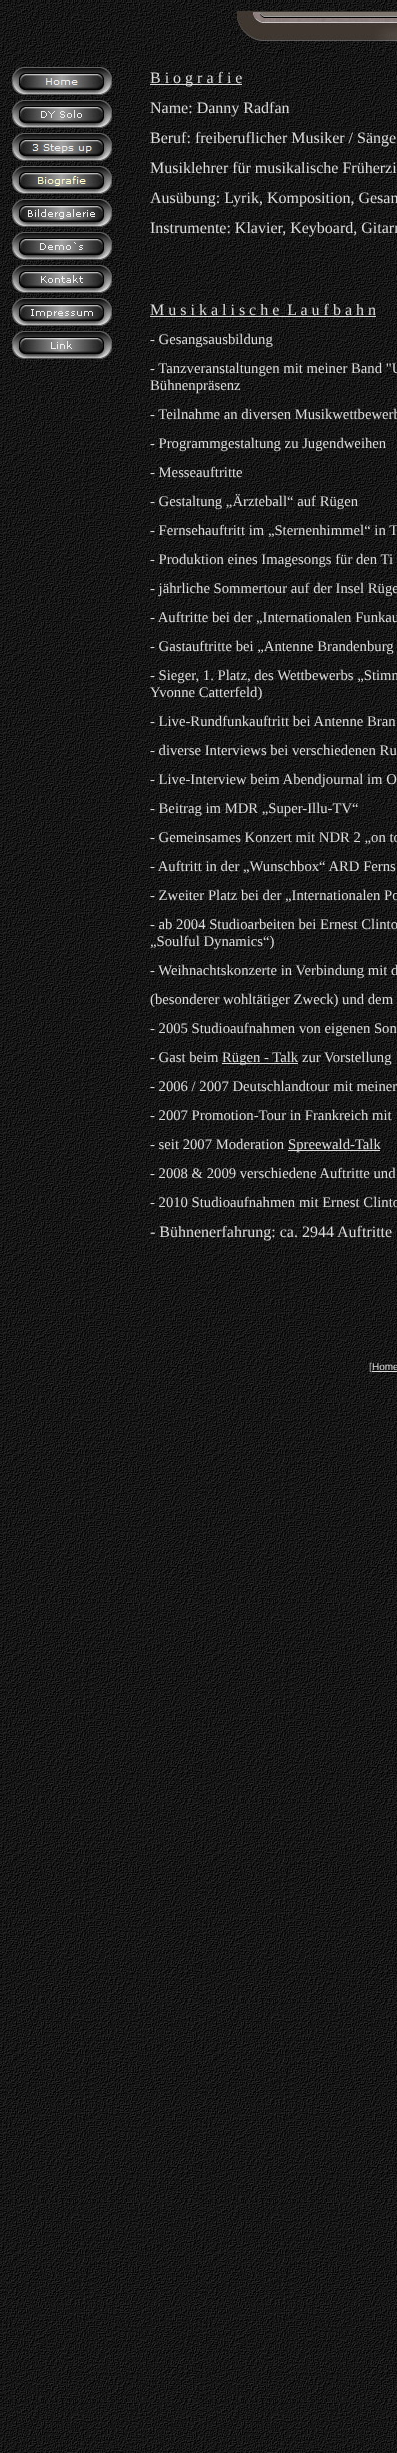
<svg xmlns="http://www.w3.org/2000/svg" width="397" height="2453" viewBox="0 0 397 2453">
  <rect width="100%" height="100%" fill="#fff"/>
  <image x="0" y="0" width="397" height="2453" href="img/1.png"/>
  <image x="12" y="67" width="100" height="33" href="img/2.png"/>
  <image x="12" y="100" width="100" height="33" href="img/3.png"/>
  <image x="12" y="133" width="100" height="33" href="img/4.png"/>
  <image x="12" y="166" width="100" height="33" href="img/5.png"/>
  <image x="12" y="199" width="100" height="33" href="img/6.png"/>
  <image x="12" y="232" width="100" height="33" href="img/7.png"/>
  <image x="12" y="265" width="100" height="33" href="img/8.png"/>
  <image x="12" y="298" width="100" height="33" href="img/9.png"/>
  <image x="12" y="331" width="100" height="33" href="img/10.png"/>
  <image x="235" y="10" width="162" height="41" href="img/11.png"/>
  <path d="M150 84h92v1H150z" fill="#dcdcdc"/>
  <path d="M150 316h226v1H150z" fill="#dcdcdc"/>
  <path d="M222 1063h76v1H222z" fill="#dcdcdc"/>
  <path d="M288 1150h92v1H288z" fill="#dcdcdc"/>
  <g font-family="Liberation Serif" font-size="16" fill="#dcdcdc">
    <text x="150" y="83">B i o g r a f i e</text>
    <text x="150" y="113">Name: Danny Radfan</text>
    <text x="150" y="143">Beruf: freiberuflicher Musiker / Sänge</text>
    <text x="150" y="173">Musiklehrer für musikalische Früherzi</text>
    <text x="150" y="203">Ausübung: Lyrik, Komposition, Gesan</text>
    <text x="150" y="233">Instrumente: Klavier, Keyboard, Gitarr</text>
    <text x="150" y="315" xml:space="preserve">M u s i k a l i s c h e  L a u f b a h n</text>
  </g>
  <g font-family="Liberation Serif" font-size="14.7" fill="#dcdcdc">
    <text x="150" y="344">- Gesangsausbildung</text>
    <text x="150" y="373">- Tanzveranstaltungen mit meiner Band "U</text>
    <text x="150" y="390">Bühnenpräsenz</text>
    <text x="150" y="419">- Teilnahme an diversen Musikwettbewerb</text>
    <text x="150" y="448">- Programmgestaltung zu Jugendweihen</text>
    <text x="150" y="477">- Messeauftritte</text>
    <text x="150" y="506">- Gestaltung „Ärzteball“ auf Rügen</text>
    <text x="150" y="535">- Fernsehauftritt im „Sternenhimmel“ in T</text>
    <text x="150" y="564">- Produktion eines Imagesongs für den Ti</text>
    <text x="150" y="593">- jährliche Sommertour auf der Insel Rüge</text>
    <text x="150" y="622">- Auftritte bei der „Internationalen Funkau</text>
    <text x="150" y="651">- Gastauftritte bei „Antenne Brandenburg</text>
    <text x="150" y="680">- Sieger, 1. Platz, des Wettbewerbs „Stimm</text>
    <text x="150" y="697">Yvonne Catterfeld)</text>
    <text x="150" y="726">- Live-Rundfunkauftritt bei Antenne Bran</text>
    <text x="150" y="755">- diverse Interviews bei verschiedenen Ru</text>
    <text x="150" y="784">- Live-Interview beim Abendjournal im O</text>
    <text x="150" y="813">- Beitrag im MDR „Super-Illu-TV“</text>
    <text x="150" y="842">- Gemeinsames Konzert mit NDR 2 „on to</text>
    <text x="150" y="871">- Auftritt in der „Wunschbox“ ARD Ferns</text>
    <text x="150" y="900">- Zweiter Platz bei der „Internationalen Po</text>
    <text x="150" y="929">- ab 2004 Studioarbeiten bei Ernest Clinto</text>
    <text x="150" y="946">„Soulful Dynamics“)</text>
    <text x="150" y="975">- Weihnachtskonzerte in Verbindung mit d</text>
    <text x="150" y="1004">(besonderer wohltätiger Zweck) und dem</text>
    <text x="150" y="1033">- 2005 Studioaufnahmen von eigenen Son</text>
    <text x="150" y="1062">- Gast beim</text>
    <text x="222" y="1062">Rügen - Talk zur Vorstellung</text>
    <text x="150" y="1091">- 2006 / 2007 Deutschlandtour mit meiner</text>
    <text x="150" y="1120">- 2007 Promotion-Tour in Frankreich mit</text>
    <text x="150" y="1149">- seit 2007 Moderation</text>
    <text x="288" y="1149">Spreewald-Talk</text>
    <text x="150" y="1178">- 2008 &amp; 2009 verschiedene Auftritte und</text>
    <text x="150" y="1207">- 2010 Studioaufnahmen mit Ernest Clinto</text>
  </g>
  <text x="150" y="1237" font-family="Liberation Serif" font-size="16" fill="#dcdcdc">- Bühnenerfahrung: ca. 2944 Auftritte</text>
  <text x="369" y="1370" font-family="Liberation Sans" font-size="10" fill="#b4b4b4">[</text>
  <text x="372" y="1370" font-family="Liberation Sans" font-size="10" fill="#dcdcdc">Home</text>
  <path d="M372 1371h25v1H372z" fill="#dcdcdc"/>
</svg>
